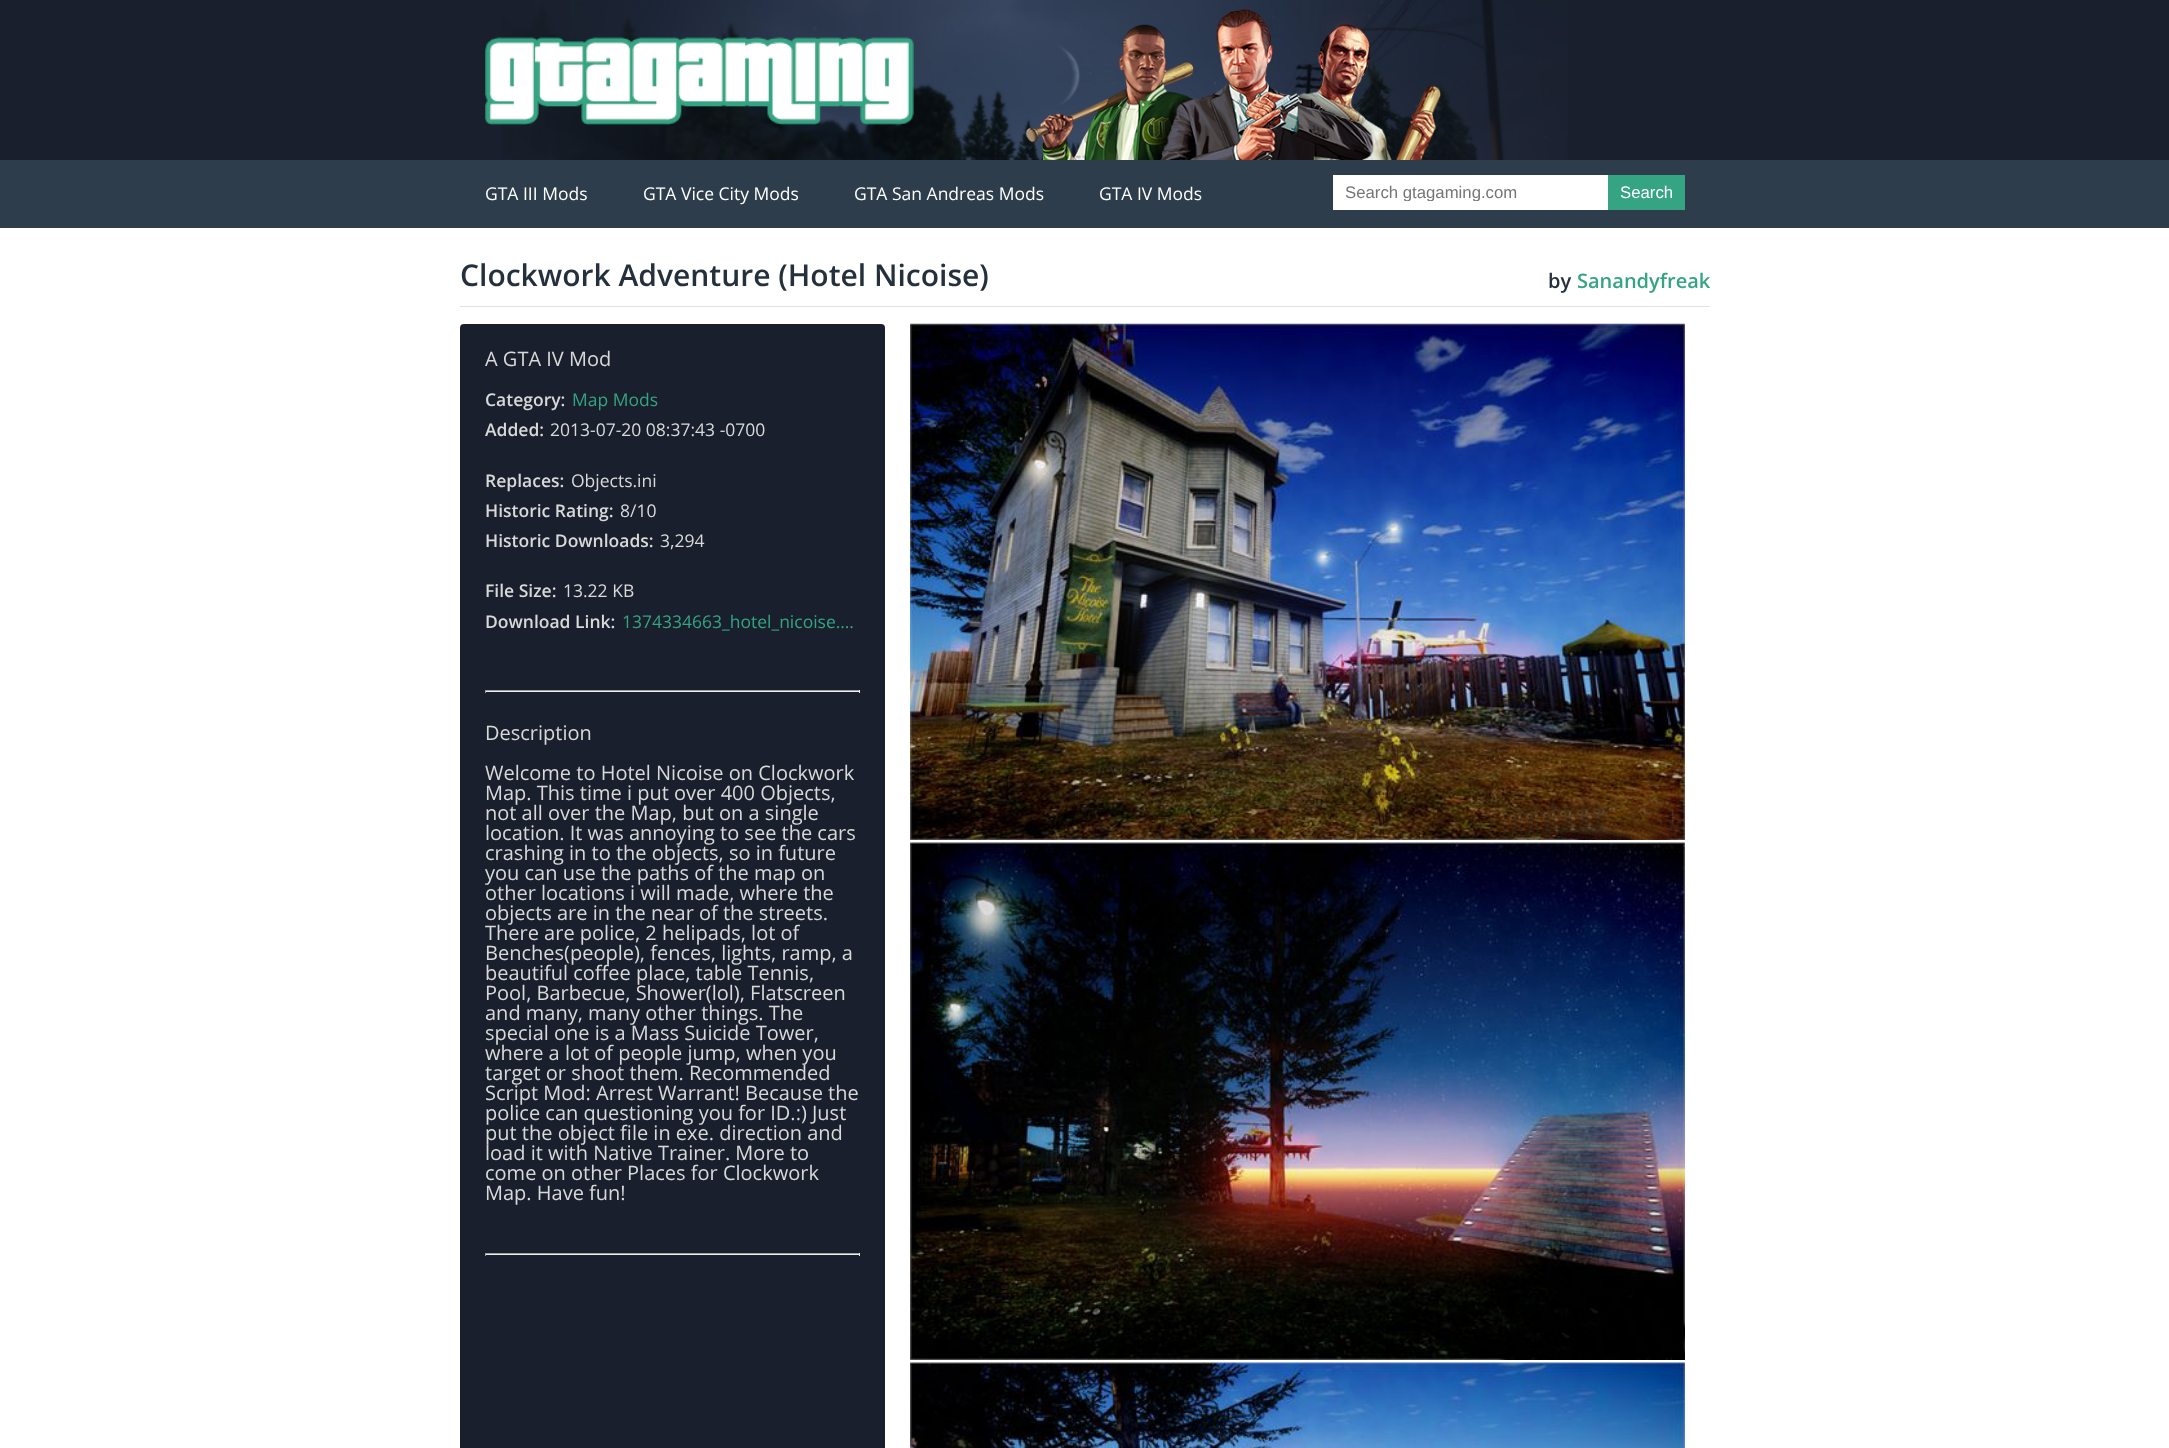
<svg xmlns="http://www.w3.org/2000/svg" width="2169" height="1448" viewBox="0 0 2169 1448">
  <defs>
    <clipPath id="clip1"><path d="M1345 183h250v18H1345z"/></clipPath>
  </defs>
  <rect width="100%" height="100%" fill="#191f2d"/>
  <image x="502" y="0" width="1066" height="160" href="img/1.png"/>
  <image x="485" y="37" width="429" height="88" href="img/2.png"/>
  <path d="M0 160h2169v68H0z" fill="#2d3d4c"/>
  <path d="M1333 175h275v35H1333z" fill="#fff"/>
  <path d="M1608 175h77v35H1608z" fill="#35a483"/>
  <path d="M0 228h2169v1220H0z" fill="#fff"/>
  <path d="M460 306h1250v1H460z" fill="#e2e2e2"/>
  <rect x="460" y="324" width="425" height="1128" rx="4" fill="#191f2d"/>
  <path d="M485 690h375v1H485z" fill="#9f9f9f"/>
  <path d="M859 690h1v3H859z" fill="#eee"/>
  <path d="M485 691h375v1H485z" fill="#eee"/>
  <path d="M485 690h1v3H485z" fill="#9f9f9f"/>
  <path d="M485 1253h375v1H485z" fill="#9f9f9f"/>
  <path d="M859 1253h1v3H859z" fill="#eee"/>
  <path d="M485 1254h375v1H485z" fill="#eee"/>
  <path d="M485 1253h1v3H485z" fill="#9f9f9f"/>
  <image x="910" y="323" width="775" height="517" href="img/3.png"/>
  <image x="910" y="842" width="775" height="518" href="img/4.png"/>
  <image x="910" y="1362" width="775" height="86" href="img/5.png"/>
  <g font-family="Open Sans" font-size="17.5" fill="#fff">
    <text x="485" y="200">GTA III Mods</text>
    <text x="643" y="200">GTA Vice City Mods</text>
    <text x="854" y="200">GTA San Andreas Mods</text>
    <text x="1099" y="200">GTA IV Mods</text>
  </g>
  <g clip-path="url(#clip1)">
    <text x="1345" y="198" font-family="Liberation Sans" font-size="16.75" fill="#757575">Search gtagaming.com</text>
  </g>
  <text x="1620" y="198" font-family="Liberation Sans" font-size="16.75" fill="#fff">Search</text>
  <text x="460" y="286" font-family="Open Sans" font-size="30" font-weight="600" fill="#24303c">Clockwork Adventure (Hotel Nicoise)</text>
  <text x="1548" y="288" font-family="Open Sans" font-size="20" font-weight="600" fill="#24303c">by</text>
  <text x="1577" y="288" font-family="Open Sans" font-size="20" font-weight="600" fill="#35a483">Sanandyfreak</text>
  <text x="485" y="366" font-family="Open Sans" font-size="20" fill="#d9d9d9">A GTA IV Mod</text>
  <text x="485" y="406" font-family="Open Sans" font-size="17.5" font-weight="600" fill="#d9d9d9">Category:</text>
  <text x="572" y="406" font-family="Open Sans" font-size="17.5" fill="#35a483">Map Mods</text>
  <text x="485" y="436" font-family="Open Sans" font-size="17.5" font-weight="600" fill="#d9d9d9">Added:</text>
  <text x="550" y="436" font-family="Open Sans" font-size="17.5" fill="#d9d9d9">2013-07-20 08:37:43 -0700</text>
  <text x="485" y="487" font-family="Open Sans" font-size="17.5" font-weight="600" fill="#d9d9d9">Replaces:</text>
  <text x="571" y="487" font-family="Open Sans" font-size="17.5" fill="#d9d9d9">Objects.ini</text>
  <text x="485" y="517" font-family="Open Sans" font-size="17.5" font-weight="600" fill="#d9d9d9">Historic Rating:</text>
  <text x="620" y="517" font-family="Open Sans" font-size="17.5" fill="#d9d9d9">8/10</text>
  <text x="485" y="547" font-family="Open Sans" font-size="17.5" font-weight="600" fill="#d9d9d9">Historic Downloads:</text>
  <text x="660" y="547" font-family="Open Sans" font-size="17.5" fill="#d9d9d9">3,294</text>
  <text x="485" y="597" font-family="Open Sans" font-size="17.5" font-weight="600" fill="#d9d9d9">File Size:</text>
  <text x="563" y="597" font-family="Open Sans" font-size="17.5" fill="#d9d9d9">13.22 KB</text>
  <text x="485" y="628" font-family="Open Sans" font-size="17.5" font-weight="600" fill="#d9d9d9">Download Link:</text>
  <text x="622" y="628" font-family="Open Sans" font-size="17.5" fill="#35a483">1374334663_hotel_nicoise.…</text>
  <g font-family="Open Sans" font-size="20" fill="#d9d9d9">
    <text x="485" y="740">Description</text>
    <text x="485" y="780">Welcome to Hotel Nicoise on Clockwork</text>
    <text x="485" y="800">Map. This time i put over 400 Objects,</text>
    <text x="485" y="820">not all over the Map, but on a single</text>
    <text x="485" y="840">location. It was annoying to see the cars</text>
    <text x="485" y="860">crashing in to the objects, so in future</text>
    <text x="485" y="880">you can use the paths of the map on</text>
    <text x="485" y="900">other locations i will made, where the</text>
    <text x="485" y="920">objects are in the near of the streets.</text>
    <text x="485" y="940">There are police, 2 helipads, lot of</text>
    <text x="485" y="960">Benches(people), fences, lights, ramp, a</text>
    <text x="485" y="980">beautiful coffee place, table Tennis,</text>
    <text x="485" y="1000">Pool, Barbecue, Shower(lol), Flatscreen</text>
    <text x="485" y="1020">and many, many other things. The</text>
    <text x="485" y="1040">special one is a Mass Suicide Tower,</text>
    <text x="485" y="1060">where a lot of people jump, when you</text>
    <text x="485" y="1080">target or shoot them. Recommended</text>
    <text x="485" y="1100">Script Mod: Arrest Warrant! Because the</text>
    <text x="485" y="1120">police can questioning you for ID.:) Just</text>
    <text x="485" y="1140">put the object file in exe. direction and</text>
    <text x="485" y="1160">load it with Native Trainer. More to</text>
    <text x="485" y="1180">come on other Places for Clockwork</text>
    <text x="485" y="1200">Map. Have fun!</text>
  </g>
</svg>
